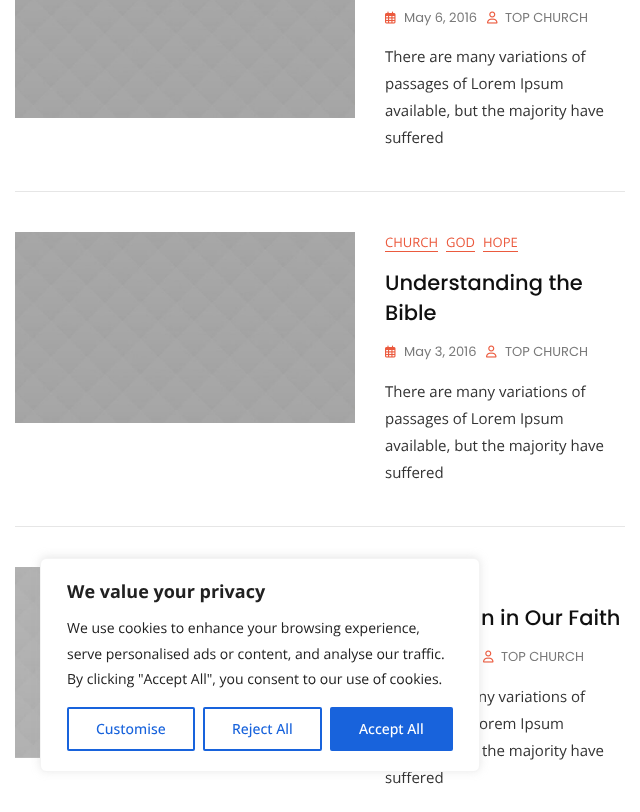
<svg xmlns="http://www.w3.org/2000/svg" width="640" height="812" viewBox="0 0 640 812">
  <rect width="100%" height="100%" fill="#fff"/>
  <image x="15" y="567" width="25" height="191" href="img/5.png"/>
  <image x="483" y="650" width="11" height="13" href="img/3.png"/>
  <rect x="40" y="557" width="440" height="214" rx="6" fill="#acabab4d" filter="blur(5px)"/>
  <path d="M15 191h610v1H15z" fill="#e6e6e6"/>
  <image x="15" y="0" width="340" height="118" href="img/1.png"/>
  <image x="385" y="11" width="11" height="13" href="img/2.png"/>
  <image x="487" y="11" width="11" height="13" href="img/3.png"/>
  <path d="M15 526h610v1H15z" fill="#e6e6e6"/>
  <image x="15" y="232" width="340" height="191" href="img/4.png"/>
  <path d="M385 251h53v1H385z" fill="#eb5a3e"/>
  <path d="M446 251h29v1H446z" fill="#eb5a3e"/>
  <path d="M483 251h35v1H483z" fill="#eb5a3e"/>
  <image x="385" y="345" width="11" height="13" href="img/2.png"/>
  <image x="486" y="345" width="11" height="13" href="img/3.png"/>
  <g font-family="Poppins" font-size="13" fill="#7a7a7a">
    <text x="404" y="22">May 6, 2016</text>
    <text x="505" y="22">TOP CHURCH</text>
  </g>
  <g font-family="Open Sans" font-size="15" fill="#333">
    <text x="385" y="62">There are many variations of</text>
    <text x="385" y="89">passages of Lorem Ipsum</text>
    <text x="385" y="116">available, but the majority have</text>
    <text x="385" y="143">suffered</text>
  </g>
  <g font-family="Open Sans" font-size="13" fill="#eb5a3e">
    <text x="385" y="247">CHURCH</text>
    <text x="446" y="247">GOD</text>
    <text x="483" y="247">HOPE</text>
  </g>
  <g font-family="Poppins" font-size="21" font-weight="500" fill="#101010">
    <text x="385" y="290">Understanding the</text>
    <text x="385" y="320">Bible</text>
  </g>
  <g font-family="Poppins" font-size="13" fill="#7a7a7a">
    <text x="404" y="356">May 3, 2016</text>
    <text x="505" y="356">TOP CHURCH</text>
  </g>
  <g font-family="Open Sans" font-size="15" fill="#333">
    <text x="385" y="397">There are many variations of</text>
    <text x="385" y="424">passages of Lorem Ipsum</text>
    <text x="385" y="451">available, but the majority have</text>
    <text x="385" y="478">suffered</text>
  </g>
  <text x="481" y="625" font-family="Poppins" font-size="21" font-weight="500" fill="#101010">n in Our Faith</text>
  <text x="501" y="661" font-family="Poppins" font-size="13" fill="#7a7a7a">TOP CHURCH</text>
  <g font-family="Open Sans" font-size="15" fill="#333">
    <text x="478" y="702">ny variations of</text>
    <text x="479" y="729">orem Ipsum</text>
    <text x="482" y="756">the majority have</text>
    <text x="385" y="783">suffered</text>
  </g>
  <rect x="40.5" y="558.5" width="439" height="213" rx="5.5" fill="#fff" stroke="#f4f4f4"/>
  <rect x="331" y="708" width="121" height="42" rx="1" fill="#1863dc" stroke="#1863dc" stroke-width="2"/>
  <text x="359" y="734" font-family="Open Sans" font-size="14" font-weight="500" fill="#fff">Accept All</text>
  <rect x="204" y="708" width="117" height="42" rx="1" fill="none" stroke="#1863dc" stroke-width="2"/>
  <text x="232" y="734" font-family="Open Sans" font-size="14" font-weight="500" fill="#1863dc">Reject All</text>
  <rect x="68" y="708" width="126" height="42" rx="1" fill="none" stroke="#1863dc" stroke-width="2"/>
  <text x="96" y="734" font-family="Open Sans" font-size="14" font-weight="500" fill="#1863dc">Customise</text>
  <g font-family="Open Sans" font-size="14" fill="#212121">
    <text x="67" y="684">By clicking "Accept All", you consent to our use of cookies.</text>
    <text x="67" y="659">serve personalised ads or content, and analyse our traffic.</text>
    <text x="67" y="633">We use cookies to enhance your browsing experience,</text>
  </g>
  <text x="67" y="598" font-family="Open Sans" font-size="18" font-weight="bold" fill="#212121">We value your privacy</text>
</svg>
